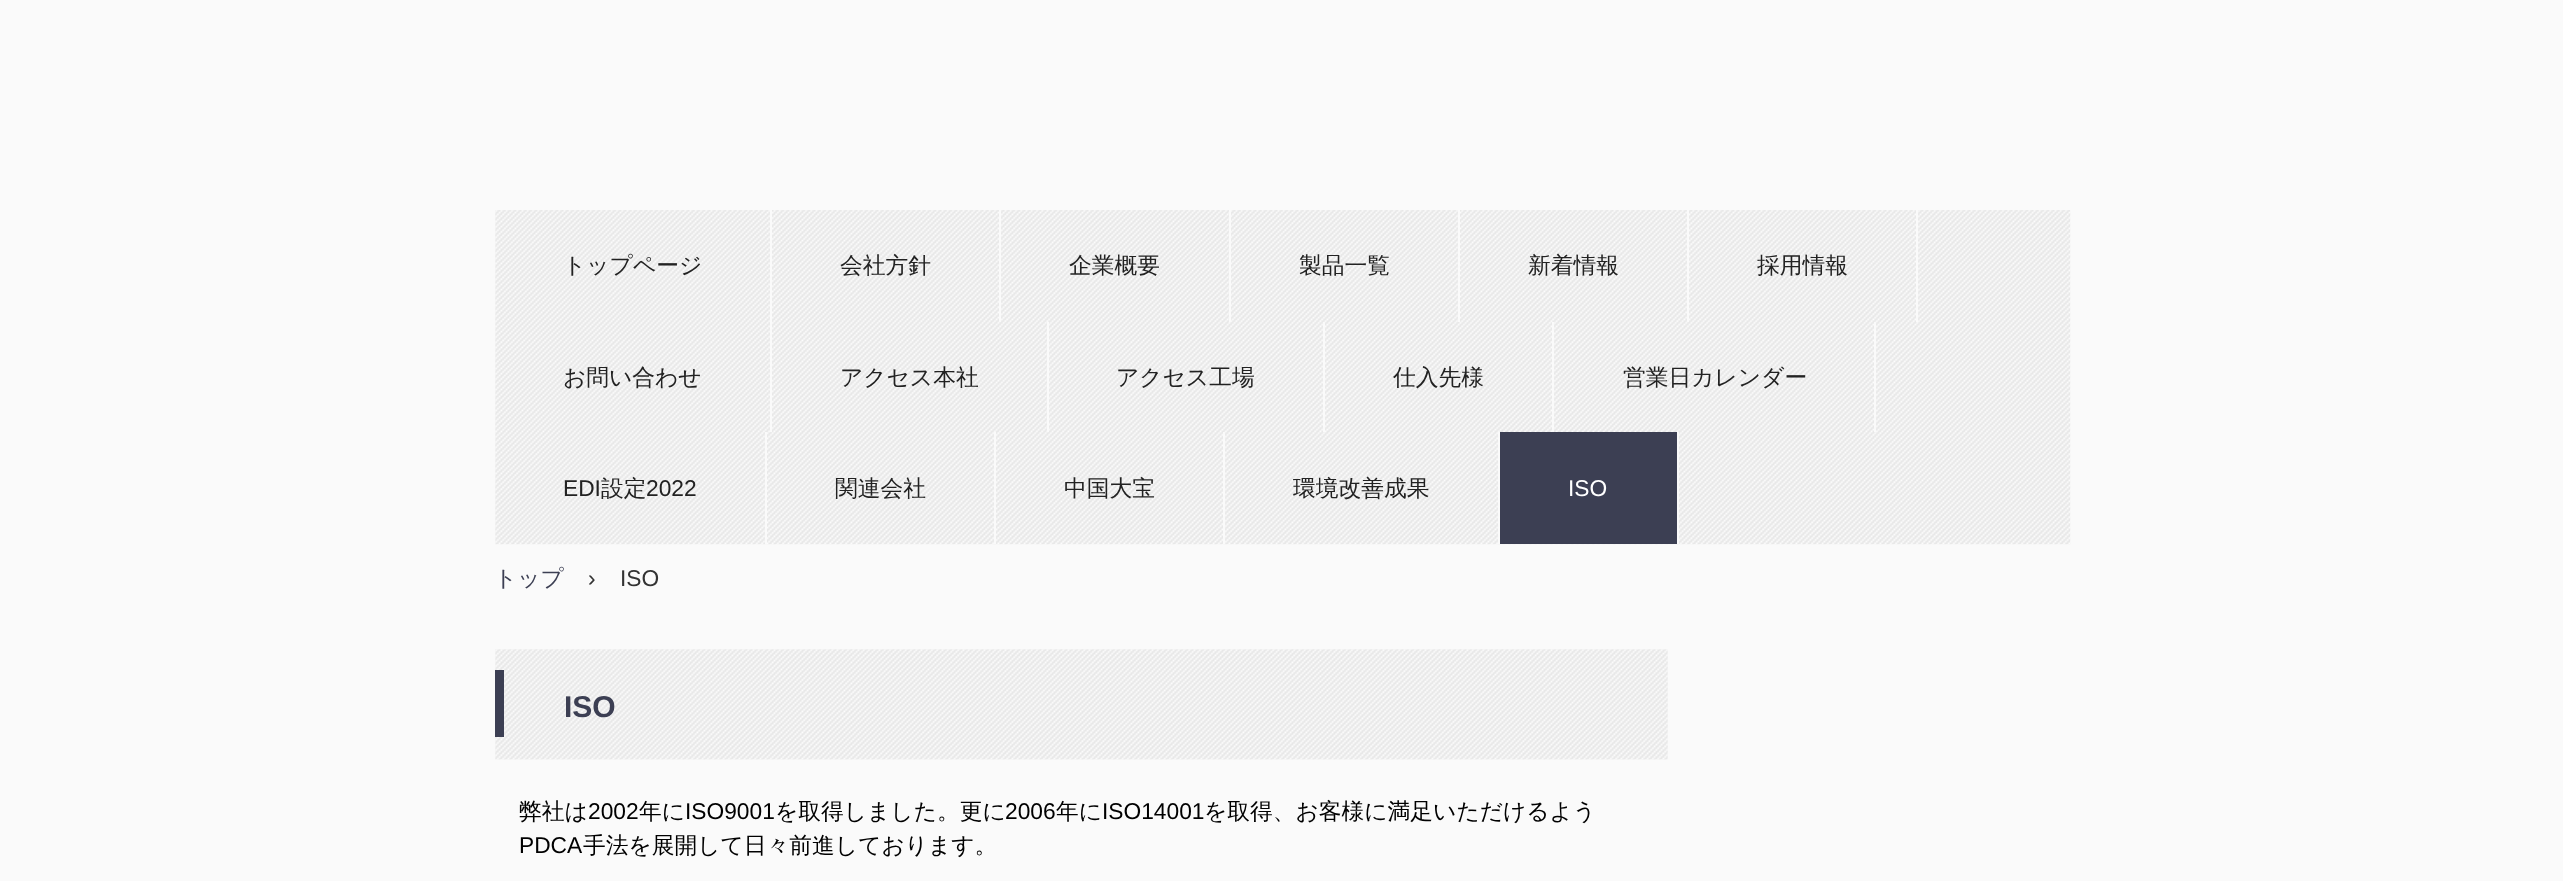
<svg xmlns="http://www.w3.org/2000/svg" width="2563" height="881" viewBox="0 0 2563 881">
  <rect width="100%" height="100%" fill="#fafafa"/>
  <image x="495" y="210" width="1576" height="335" href="img/1.png"/>
  <path d="M770 210h2v222H770z" fill="#fafafa"/>
  <path d="M999 210h2v112H999z" fill="#fafafa"/>
  <path d="M1229 210h2v112H1229z" fill="#fafafa"/>
  <path d="M1458 210h2v112H1458z" fill="#fafafa"/>
  <path d="M1687 210h2v112H1687z" fill="#fafafa"/>
  <path d="M1916 210h2v112H1916z" fill="#fafafa"/>
  <path d="M1047 322h2v110H1047z" fill="#fafafa"/>
  <path d="M1323 322h2v110H1323z" fill="#fafafa"/>
  <path d="M1552 322h2v110H1552z" fill="#fafafa"/>
  <path d="M1874 322h2v110H1874z" fill="#fafafa"/>
  <path d="M765 432h2v112H765z" fill="#fafafa"/>
  <path d="M994 432h2v112H994z" fill="#fafafa"/>
  <path d="M1223 432h2v112H1223z" fill="#fafafa"/>
  <path d="M1498 432h2v112H1498z" fill="#fafafa"/>
  <path d="M1500 432h177v112H1500z" fill="#3c3f53"/>
  <path d="M1677 432h2v112H1677z" fill="#fafafa"/>
  <image x="495" y="649" width="1173" height="111" href="img/2.png"/>
  <path d="M495 670h9v67H495z" fill="#3c3f53"/>
  <g font-family="WenQuanYi Zen Hei" font-size="22.75" font-weight="500" fill="#222">
    <text x="563" y="273">トップページ</text>
    <text x="840" y="273">会社方針</text>
    <text x="1069" y="273">企業概要</text>
    <text x="1299" y="273">製品一覧</text>
    <text x="1528" y="273">新着情報</text>
    <text x="1757" y="273">採用情報</text>
    <text x="563" y="385">お問い合わせ</text>
    <text x="840" y="385">アクセス本社</text>
    <text x="1116" y="385">アクセス工場</text>
    <text x="1393" y="385">仕入先様</text>
    <text x="1623" y="385">営業日カレンダー</text>
  </g>
  <text x="563" y="496" font-family="Liberation Sans" font-size="22.75" fill="#222">EDI</text>
  <text x="601" y="496" font-family="WenQuanYi Zen Hei" font-size="22.75" font-weight="500" fill="#222">設定</text>
  <text x="646" y="496" font-family="Liberation Sans" font-size="22.75" fill="#222">2022</text>
  <g font-family="WenQuanYi Zen Hei" font-size="22.75" font-weight="500" fill="#222">
    <text x="835" y="496">関連会社</text>
    <text x="1064" y="496">中国大宝</text>
    <text x="1293" y="496">環境改善成果</text>
  </g>
  <text x="1568" y="496" font-family="Liberation Sans" font-size="22.75" fill="#fff">ISO</text>
  <text x="494" y="586" font-family="WenQuanYi Zen Hei" font-size="22.75" font-weight="500" fill="#3c3f53">トップ</text>
  <g font-family="Liberation Sans" font-size="22.75" fill="#333">
    <text x="588" y="586">›</text>
    <text x="620" y="586">ISO</text>
  </g>
  <text x="564" y="717" font-family="Liberation Sans" font-size="30" font-weight="bold" fill="#3c3f53">ISO</text>
  <text x="519" y="819" font-family="WenQuanYi Zen Hei" font-size="22.75" font-weight="500" fill="#000">弊社は</text>
  <text x="588" y="819" font-family="Liberation Sans" font-size="22.75" fill="#000">2002</text>
  <text x="639" y="819" font-family="WenQuanYi Zen Hei" font-size="22.75" font-weight="500" fill="#000">年に</text>
  <text x="685" y="819" font-family="Liberation Sans" font-size="22.75" fill="#000">ISO9001</text>
  <text x="775" y="819" font-family="WenQuanYi Zen Hei" font-size="22.75" font-weight="500" fill="#000">を取得しました。更に</text>
  <text x="1005" y="819" font-family="Liberation Sans" font-size="22.75" fill="#000">2006</text>
  <text x="1056" y="819" font-family="WenQuanYi Zen Hei" font-size="22.75" font-weight="500" fill="#000">年に</text>
  <text x="1102" y="819" font-family="Liberation Sans" font-size="22.75" fill="#000">ISO14001</text>
  <text x="1204" y="819" font-family="WenQuanYi Zen Hei" font-size="22.75" font-weight="500" fill="#000">を取得、お客様に満足いただけるよう</text>
  <text x="519" y="853" font-family="Liberation Sans" font-size="22.75" fill="#000">PDCA</text>
  <text x="583" y="853" font-family="WenQuanYi Zen Hei" font-size="22.75" font-weight="500" fill="#000">手法を展開して日々前進しております。</text>
</svg>
